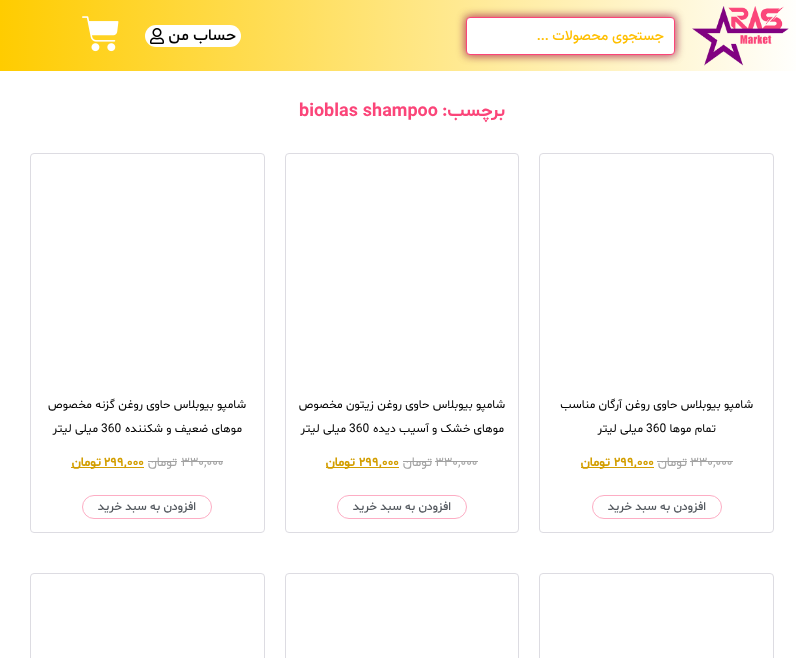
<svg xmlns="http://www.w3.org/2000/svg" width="804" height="658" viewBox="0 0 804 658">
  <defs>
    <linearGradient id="g1" gradientUnits="userSpaceOnUse" x1="804" y1="35" x2="0" y2="36"><stop offset="0" stop-color="#fff"/><stop offset="1" stop-color="#fc0"/></linearGradient>
    <clipPath id="clip1"><path d="M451 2H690V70H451ZM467 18H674V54H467Z" clip-rule="evenodd"/></clipPath>
  </defs>
  <rect width="100%" height="100%" fill="#fff"/>
  <path d="M0 0h796v71H0z" fill="url(#g1)"/>
  <image x="692" y="6" width="97" height="60" href="img/1.png"/>
  <path d="M466 17h209v38H466z" fill="#00000080" filter="blur(5px)"/>
  <rect x="466.5" y="17.5" width="208" height="37" rx="3.5" fill="#fff" stroke="#fb4579"/>
  <g clip-path="url(#clip1)">
    <path d="M467 18h207v36H467z" fill="#fb4579" filter="blur(5px)"/>
  </g>
  <rect x="145" y="25" width="96" height="22" rx="11" fill="#fff"/>
  <image x="150" y="28" width="14" height="16" href="img/2.png"/>
  <image x="82" y="16" width="37" height="36" href="img/3.png"/>
  <rect x="539.5" y="153.5" width="234" height="379" rx="3.5" fill="none" stroke="#dddce2"/>
  <path d="M690 461h43v1H690z" fill="#a2a2a2"/>
  <path d="M657 461h30v1H657z" fill="#a2a2a2"/>
  <path d="M581 467h73v1H581z" fill="#d39e00"/>
  <rect x="592.5" y="495.5" width="129" height="23" rx="11.5" fill="none" stroke="#fdadc4"/>
  <rect x="285.5" y="153.5" width="233" height="379" rx="3.5" fill="none" stroke="#dddce2"/>
  <path d="M435 461h43v1H435z" fill="#a2a2a2"/>
  <path d="M403 461h29v1H403z" fill="#a2a2a2"/>
  <path d="M326 467h73v1H326z" fill="#d39e00"/>
  <rect x="337.5" y="495.5" width="129" height="23" rx="11.5" fill="none" stroke="#fdadc4"/>
  <rect x="30.5" y="153.5" width="234" height="379" rx="3.5" fill="none" stroke="#dddce2"/>
  <path d="M181 461h42v1H181z" fill="#a2a2a2"/>
  <path d="M148 461h29v1H148z" fill="#a2a2a2"/>
  <path d="M71 467h73v1H71z" fill="#d39e00"/>
  <rect x="82.5" y="495.5" width="129" height="23" rx="11.5" fill="none" stroke="#fdadc4"/>
  <rect x="539.5" y="573.5" width="234" height="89" rx="3.5" fill="none" stroke="#dddce2"/>
  <rect x="285.5" y="573.5" width="233" height="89" rx="3.5" fill="none" stroke="#dddce2"/>
  <rect x="30.5" y="573.5" width="234" height="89" rx="3.5" fill="none" stroke="#dddce2"/>
  <text x="664" y="40" font-family="Vazirmatn" font-size="14" font-weight="500" direction="rtl" fill="#ffbf00">جستجوی محصولات ...</text>
  <text x="236" y="40" font-family="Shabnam" font-size="16" font-weight="500" direction="rtl" fill="#000">حساب من</text>
  <text x="505" y="116" font-family="Shabnam" font-size="18" font-weight="bold" direction="rtl" fill="#fb4579">برچسب:</text>
  <text x="299" y="116" font-family="Shabnam" font-size="18" font-weight="bold" fill="#fb4579">bioblas shampoo</text>
  <g font-family="Shabnam" font-size="12" direction="rtl" fill="#000">
    <text x="753" y="408">شامپو بیوبلاس حاوی روغن آرگان مناسب</text>
    <text x="716" y="432">تمام موها</text>
  </g>
  <text x="646" y="432" font-family="Shabnam" font-size="12" fill="#000">360</text>
  <text x="643" y="432" font-family="Shabnam" font-size="12" direction="rtl" fill="#000">میلی لیتر</text>
  <text x="690" y="466" font-family="Shabnam" font-size="13" fill="#a2a2a2">۳۳۰,۰۰۰</text>
  <text x="687" y="466" font-family="Shabnam" font-size="13" direction="rtl" fill="#a2a2a2">تومان</text>
  <text x="614" y="466" font-family="Shabnam" font-size="13" font-weight="bold" fill="#d39e00">۲۹۹,۰۰۰</text>
  <text x="610" y="466" font-family="Shabnam" font-size="13" font-weight="bold" direction="rtl" fill="#d39e00">تومان</text>
  <text x="706" y="510" font-family="Shabnam" font-size="12" font-weight="500" direction="rtl" fill="#54595f">افزودن به سبد خرید</text>
  <g font-family="Shabnam" font-size="12" direction="rtl" fill="#000">
    <text x="505" y="408">شامپو بیوبلاس حاوی روغن زیتون مخصوص</text>
    <text x="504" y="432">موهای خشک و آسیب دیده</text>
  </g>
  <text x="349" y="432" font-family="Shabnam" font-size="12" fill="#000">360</text>
  <text x="346" y="432" font-family="Shabnam" font-size="12" direction="rtl" fill="#000">میلی لیتر</text>
  <text x="435" y="466" font-family="Shabnam" font-size="13" fill="#a2a2a2">۳۳۰,۰۰۰</text>
  <text x="432" y="466" font-family="Shabnam" font-size="13" direction="rtl" fill="#a2a2a2">تومان</text>
  <text x="359" y="466" font-family="Shabnam" font-size="13" font-weight="bold" fill="#d39e00">۲۹۹,۰۰۰</text>
  <text x="355" y="466" font-family="Shabnam" font-size="13" font-weight="bold" direction="rtl" fill="#d39e00">تومان</text>
  <text x="451" y="510" font-family="Shabnam" font-size="12" font-weight="500" direction="rtl" fill="#54595f">افزودن به سبد خرید</text>
  <g font-family="Shabnam" font-size="12" direction="rtl" fill="#000">
    <text x="246" y="408">شامپو بیوبلاس حاوی روغن گزنه مخصوص</text>
    <text x="242" y="432">موهای ضعیف و شکننده</text>
  </g>
  <text x="101" y="432" font-family="Shabnam" font-size="12" fill="#000">360</text>
  <text x="98" y="432" font-family="Shabnam" font-size="12" direction="rtl" fill="#000">میلی لیتر</text>
  <text x="181" y="466" font-family="Shabnam" font-size="13" fill="#a2a2a2">۳۳۰,۰۰۰</text>
  <text x="177" y="466" font-family="Shabnam" font-size="13" direction="rtl" fill="#a2a2a2">تومان</text>
  <text x="104" y="466" font-family="Shabnam" font-size="13" font-weight="bold" fill="#d39e00">۲۹۹,۰۰۰</text>
  <text x="101" y="466" font-family="Shabnam" font-size="13" font-weight="bold" direction="rtl" fill="#d39e00">تومان</text>
  <text x="196" y="510" font-family="Shabnam" font-size="12" font-weight="500" direction="rtl" fill="#54595f">افزودن به سبد خرید</text>
</svg>
